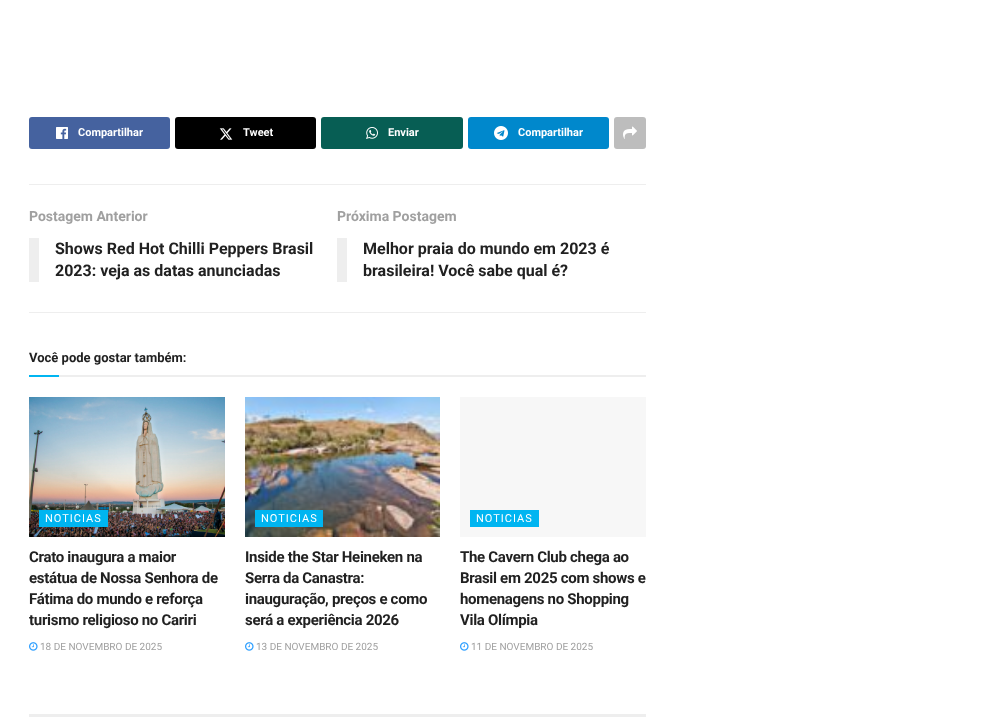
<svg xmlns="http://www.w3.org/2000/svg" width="998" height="728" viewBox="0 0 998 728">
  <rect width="100%" height="100%" fill="#fff"/>
  <rect x="29" y="117" width="141" height="32" rx="3" fill="#45629f"/>
  <image x="56" y="127" width="12" height="12" href="img/1.png"/>
  <rect x="175" y="117" width="141" height="32" rx="3" fill="#000"/>
  <image x="219" y="128" width="14" height="12" href="img/2.png"/>
  <rect x="321" y="117" width="142" height="32" rx="3" fill="#075e54"/>
  <image x="366" y="127" width="12" height="12" href="img/3.png"/>
  <rect x="468" y="117" width="141" height="32" rx="3" fill="#08c"/>
  <image x="494" y="126" width="14" height="14" href="img/4.png"/>
  <rect x="614" y="117" width="32" height="32" rx="3" fill="#bdbdbd"/>
  <image x="623" y="126" width="14" height="13" href="img/5.png"/>
  <path d="M29 184h617v1H29z" fill="#eee"/>
  <path d="M29 312h617v1H29z" fill="#eee"/>
  <path d="M29 238h10v44H29z" fill="#eee"/>
  <path d="M337 238h10v44H337z" fill="#eee"/>
  <path d="M59 375h587v2H59z" fill="#eee"/>
  <path d="M29 375h30v2H29z" fill="#00b5f1"/>
  <image x="29" y="397" width="196" height="140" href="img/6.png"/>
  <path d="M39 510h69v17H39z" fill="#00b5f1"/>
  <image x="29" y="642" width="9" height="9" href="img/7.png"/>
  <image x="245" y="397" width="195" height="140" href="img/8.png"/>
  <path d="M255 510h68v17H255z" fill="#00b5f1"/>
  <image x="245" y="642" width="9" height="9" href="img/7.png"/>
  <path d="M460 397h186v140H460z" fill="#f7f7f7"/>
  <path d="M470 510h69v17H470z" fill="#00b5f1"/>
  <image x="460" y="642" width="9" height="9" href="img/7.png"/>
  <path d="M29 714h617v3H29z" fill="#eee"/>
  <g font-family="Roboto" font-size="11" font-weight="bold" fill="#fff">
    <text x="78" y="136">Compartilhar</text>
    <text x="243" y="136">Tweet</text>
    <text x="388" y="136">Enviar</text>
    <text x="518" y="136">Compartilhar</text>
  </g>
  <text x="29" y="221" font-family="Roboto" font-size="14" font-weight="bold" fill="#a0a0a0">Postagem Anterior</text>
  <g font-family="Roboto" font-size="16" font-weight="bold" fill="#212121">
    <text x="55" y="254">Shows Red Hot Chilli Peppers Brasil</text>
    <text x="55" y="276">2023: veja as datas anunciadas</text>
  </g>
  <text x="337" y="221" font-family="Roboto" font-size="14" font-weight="bold" fill="#a0a0a0">Próxima Postagem</text>
  <g font-family="Roboto" font-size="16" font-weight="bold" fill="#212121">
    <text x="363" y="254">Melhor praia do mundo em 2023 é</text>
    <text x="363" y="276">brasileira! Você sabe qual é?</text>
  </g>
  <text x="29" y="362" font-family="Roboto" font-size="13" font-weight="bold" fill="#212121">Você pode gostar também:</text>
  <text x="45" y="522" font-family="Roboto" font-size="11" letter-spacing="1" fill="#fff">NOTICIAS</text>
  <g font-family="Roboto" font-size="15" font-weight="bold" letter-spacing="-0.3" fill="#212121">
    <text x="29" y="562">Crato inaugura a maior</text>
    <text x="29" y="583">estátua de Nossa Senhora de</text>
    <text x="29" y="604">Fátima do mundo e reforça</text>
    <text x="29" y="625">turismo religioso no Cariri</text>
  </g>
  <text x="40" y="650" font-family="Roboto" font-size="10" fill="#a0a0a0">18 DE NOVEMBRO DE 2025</text>
  <text x="261" y="522" font-family="Roboto" font-size="11" letter-spacing="1" fill="#fff">NOTICIAS</text>
  <g font-family="Roboto" font-size="15" font-weight="bold" letter-spacing="-0.3" fill="#212121">
    <text x="245" y="562">Inside the Star Heineken na</text>
    <text x="245" y="583">Serra da Canastra:</text>
    <text x="245" y="604">inauguração, preços e como</text>
    <text x="245" y="625">será a experiência 2026</text>
  </g>
  <text x="256" y="650" font-family="Roboto" font-size="10" fill="#a0a0a0">13 DE NOVEMBRO DE 2025</text>
  <text x="476" y="522" font-family="Roboto" font-size="11" letter-spacing="1" fill="#fff">NOTICIAS</text>
  <g font-family="Roboto" font-size="15" font-weight="bold" letter-spacing="-0.3" fill="#212121">
    <text x="460" y="562">The Cavern Club chega ao</text>
    <text x="460" y="583">Brasil em 2025 com shows e</text>
    <text x="460" y="604">homenagens no Shopping</text>
    <text x="460" y="625">Vila Olímpia</text>
  </g>
  <text x="471" y="650" font-family="Roboto" font-size="10" fill="#a0a0a0">11 DE NOVEMBRO DE 2025</text>
</svg>
